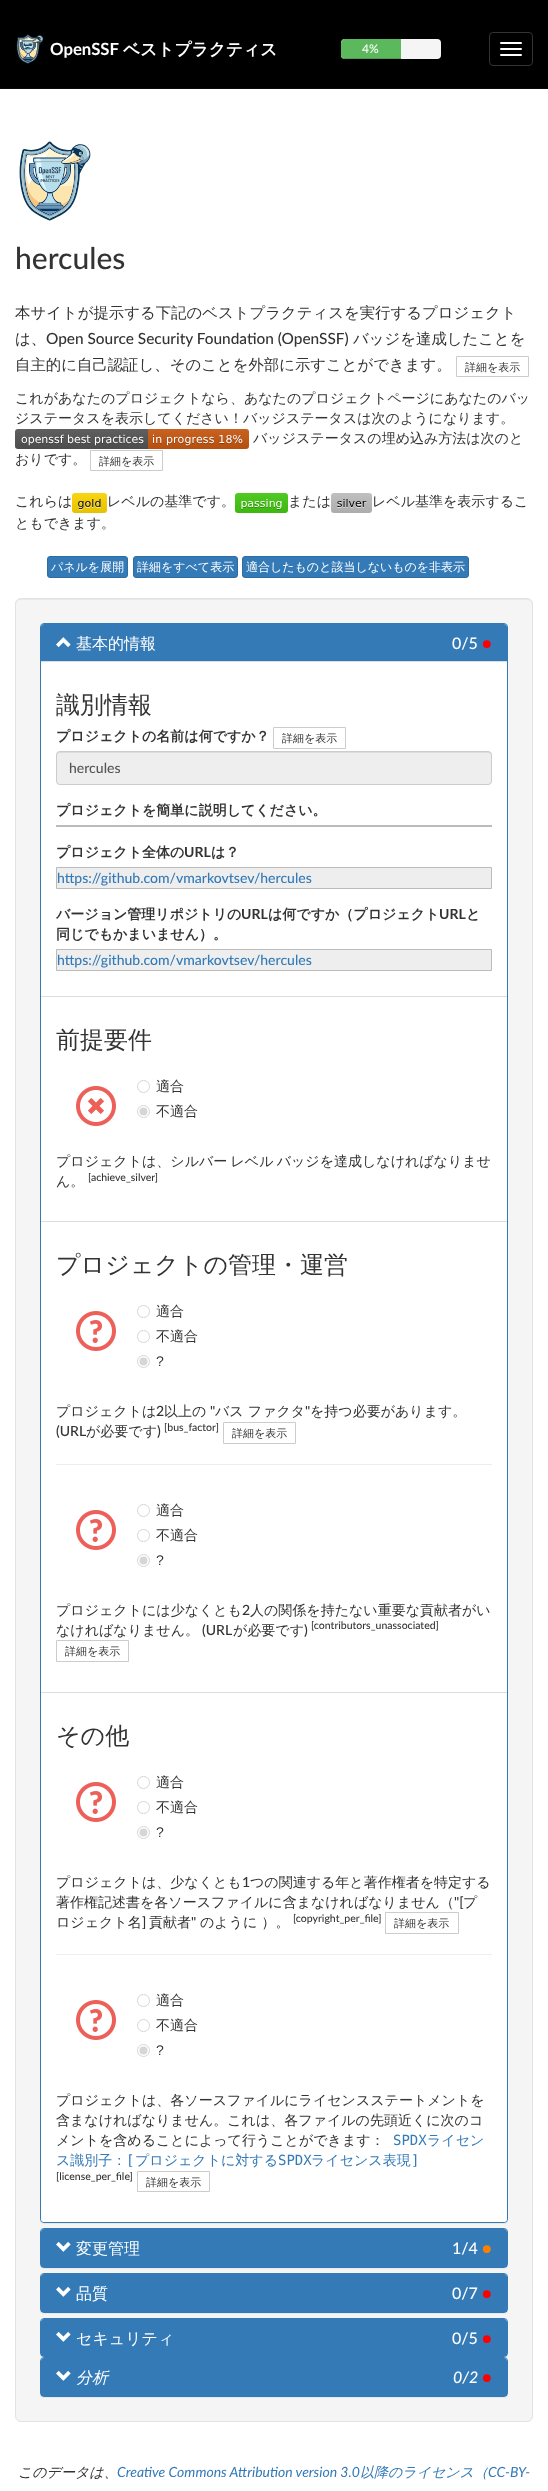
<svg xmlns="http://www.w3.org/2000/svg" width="548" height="2491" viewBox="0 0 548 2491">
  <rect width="100%" height="100%" fill="#fff"/>
  <path d="M0 0h548v88H0z" fill="#000"/>
  <path d="M0 88h548v1H0z" fill="#090909"/>
  <image x="16" y="34" width="28" height="30" href="img/1.png"/>
  <rect x="341" y="39" width="100" height="20" rx="4" fill="#f5f5f5"/>
  <path d="M345 39H401V59H345C343 59 341 57 341 55V43C341 41 343 39 345 39Z" fill="#5cb85c"/>
  <path d="M341 58h60v1H341z" fill="#00000026"/>
  <rect x="489.5" y="32.5" width="43" height="33" rx="3.5" fill="none" stroke="#333"/>
  <rect x="500" y="42" width="22" height="2" rx="1" fill="#fff"/>
  <rect x="500" y="48" width="22" height="2" rx="1" fill="#fff"/>
  <rect x="500" y="54" width="22" height="2" rx="1" fill="#fff"/>
  <image x="19" y="141" width="72" height="80" href="img/2.png"/>
  <path d="M456.5 356.5h72v20H456.5z" fill="none" stroke="#ccc"/>
  <image x="15" y="429" width="234" height="20" href="img/3.png"/>
  <path d="M90.5 450.5h72v20H90.5z" fill="none" stroke="#ccc"/>
  <image x="72" y="493" width="35" height="20" href="img/4.png"/>
  <image x="235" y="493" width="53" height="20" href="img/5.png"/>
  <image x="331" y="493" width="41" height="20" href="img/6.png"/>
  <rect x="47.5" y="556.5" width="80" height="21" rx="2.5" fill="#337ab7" stroke="#2e6da4"/>
  <rect x="133.5" y="556.5" width="104" height="21" rx="2.5" fill="#337ab7" stroke="#2e6da4"/>
  <rect x="242.5" y="556.5" width="226" height="21" rx="2.5" fill="#337ab7" stroke="#2e6da4"/>
  <rect x="15" y="598" width="518" height="1824" rx="6" fill="#f5f5f5"/>
  <path d="M21 600H527C530 600 532 602 532 605V604C532 601 530 599 527 599H21C18 599 16 601 16 604V605C16 602 18 600 21 600Z" fill="#e9e9e9"/>
  <rect x="15.5" y="598.5" width="517" height="1823" rx="5.5" fill="none" stroke="#e3e3e3"/>
  <rect x="40" y="624" width="468" height="1600" rx="4" fill="#0000000d" filter="blur(0.5px)"/>
  <rect x="40.5" y="623.5" width="467" height="1599" rx="3.5" fill="#fff" stroke="#337ab7"/>
  <path d="M44 624H504C505.5 624 507 625.5 507 627V661H41V627C41 625.5 42.5 624 44 624Z" fill="#337ab7"/>
  <image x="56" y="637" width="15" height="11" href="img/7.png"/>
  <path d="M41 661h466v1H41z" fill="#ddd"/>
  <path d="M41 996h466v1H41z" fill="#ddd"/>
  <path d="M273.5 727.5h72v21H273.5z" fill="none" stroke="#ccc"/>
  <rect x="56" y="751" width="436" height="34" rx="4" fill="#eee"/>
  <path d="M60 753H488C490 753 491 754 491 756C491 754 490 752 488 752H60C58 752 57 754 57 756C57 754 58 753 60 753Z" fill="#dcdcdc"/>
  <rect x="56.5" y="751.5" width="435" height="33" rx="3.5" fill="none" stroke="#ccc"/>
  <path d="M56 825h436v2H56z" fill="#bbb"/>
  <path d="M56.5 867.5h435v21H56.5z" fill="#eee" stroke="#bbb"/>
  <path d="M56.5 949.5h435v21H56.5z" fill="#eee" stroke="#bbb"/>
  <path d="M41 1221h466v1H41z" fill="#ddd"/>
  <image x="76" y="1086" width="40" height="40" href="img/8.png"/>
  <circle cx="143.5" cy="1086.5" r="6" fill="none" stroke="#d6d6d6"/>
  <circle cx="143.5" cy="1111.5" r="6" fill="none" stroke="#d6d6d6"/>
  <circle cx="143.5" cy="1111.5" r="4" fill="#d6d6d6"/>
  <image x="76" y="1311" width="40" height="40" href="img/9.png"/>
  <circle cx="143.5" cy="1311.5" r="6" fill="none" stroke="#d6d6d6"/>
  <circle cx="143.5" cy="1336.5" r="6" fill="none" stroke="#d6d6d6"/>
  <circle cx="143.5" cy="1361.5" r="6" fill="none" stroke="#d6d6d6"/>
  <circle cx="143.5" cy="1361.5" r="4" fill="#d6d6d6"/>
  <path d="M223.5 1422.5h72v21H223.5z" fill="none" stroke="#ccc"/>
  <path d="M56 1464h436v1H56z" fill="#eee"/>
  <image x="76" y="1510" width="40" height="40" href="img/9.png"/>
  <circle cx="143.5" cy="1510.5" r="6" fill="none" stroke="#d6d6d6"/>
  <circle cx="143.5" cy="1535.5" r="6" fill="none" stroke="#d6d6d6"/>
  <circle cx="143.5" cy="1560.5" r="6" fill="none" stroke="#d6d6d6"/>
  <circle cx="143.5" cy="1560.5" r="4" fill="#d6d6d6"/>
  <path d="M56.5 1640.5h72v21H56.5z" fill="none" stroke="#ccc"/>
  <path d="M41 1692H507V2219C507 2220.5 505.5 2222 504 2222H44C42.5 2222 41 2220.5 41 2219Z" fill="#fff"/>
  <path d="M41 1692h466v1H41z" fill="#ddd"/>
  <image x="76" y="1782" width="40" height="40" href="img/9.png"/>
  <circle cx="143.5" cy="1782.5" r="6" fill="none" stroke="#d6d6d6"/>
  <circle cx="143.5" cy="1807.5" r="6" fill="none" stroke="#d6d6d6"/>
  <circle cx="143.5" cy="1832.5" r="6" fill="none" stroke="#d6d6d6"/>
  <circle cx="143.5" cy="1832.5" r="4" fill="#d6d6d6"/>
  <path d="M385.5 1912.5h73v21H385.5z" fill="none" stroke="#ccc"/>
  <path d="M56 1954h436v1H56z" fill="#eee"/>
  <image x="76" y="2000" width="40" height="40" href="img/9.png"/>
  <circle cx="143.5" cy="2000.5" r="6" fill="none" stroke="#d6d6d6"/>
  <circle cx="143.5" cy="2025.5" r="6" fill="none" stroke="#d6d6d6"/>
  <circle cx="143.5" cy="2050.5" r="6" fill="none" stroke="#d6d6d6"/>
  <circle cx="143.5" cy="2050.5" r="4" fill="#d6d6d6"/>
  <path d="M137.5 2171.5h72v20H137.5z" fill="none" stroke="#ccc"/>
  <rect x="40" y="2229" width="468" height="40" rx="4" fill="#0000000d" filter="blur(0.5px)"/>
  <rect x="40.5" y="2228.5" width="467" height="39" rx="3.5" fill="none" stroke="#337ab7"/>
  <path d="M44 2229H504C505.5 2229 507 2230.5 507 2232V2267H41V2232C41 2230.5 42.5 2229 44 2229Z" fill="#337ab7"/>
  <image x="56" y="2241" width="15" height="11" href="img/10.png"/>
  <rect x="40" y="2274" width="468" height="40" rx="4" fill="#0000000d" filter="blur(0.5px)"/>
  <rect x="40.5" y="2273.5" width="467" height="39" rx="3.5" fill="none" stroke="#337ab7"/>
  <path d="M44 2274H504C505.5 2274 507 2275.5 507 2277V2312H41V2277C41 2275.5 42.5 2274 44 2274Z" fill="#337ab7"/>
  <image x="56" y="2286" width="15" height="11" href="img/10.png"/>
  <rect x="40" y="2319" width="468" height="39" rx="4" fill="#0000000d" filter="blur(0.5px)"/>
  <rect x="40.5" y="2318.5" width="467" height="38" rx="3.5" fill="none" stroke="#337ab7"/>
  <path d="M44 2319H504C505.5 2319 507 2320.5 507 2322V2356H41V2322C41 2320.5 42.5 2319 44 2319Z" fill="#337ab7"/>
  <image x="56" y="2331" width="15" height="11" href="img/10.png"/>
  <rect x="40" y="2358" width="468" height="40" rx="4" fill="#0000000d" filter="blur(0.5px)"/>
  <rect x="40.5" y="2357.5" width="467" height="39" rx="3.5" fill="none" stroke="#337ab7"/>
  <path d="M44 2358H504C505.5 2358 507 2359.5 507 2361V2396H41V2361C41 2359.5 42.5 2358 44 2358Z" fill="#337ab7"/>
  <image x="56" y="2370" width="15" height="11" href="img/10.png"/>
  <text x="50" y="55" font-family="Lato" font-size="16.75" font-weight="bold" fill="#fff">OpenSSF</text>
  <text x="123" y="55" font-family="WenQuanYi Zen Hei" font-size="16.75" font-weight="bold" fill="#fff">ベストプラクティス</text>
  <text x="362" y="53" font-family="Lato" font-size="12" font-weight="500" fill="#fff">4%</text>
  <text x="15" y="269" font-family="Lato" font-size="30" font-weight="500" fill="#333">hercules</text>
  <g font-family="WenQuanYi Zen Hei" font-size="15.4" font-weight="500" fill="#333">
    <text x="15" y="318">本サイトが提示する下記のベストプラクティスを実行するプロジェクト</text>
    <text x="15" y="344">は、</text>
  </g>
  <text x="46" y="344" font-family="Lato" font-size="15.4" font-weight="500" fill="#333">Open Source Security Foundation (OpenSSF)</text>
  <g font-family="WenQuanYi Zen Hei" font-size="15.4" font-weight="500" fill="#333">
    <text x="353" y="344">バッジを達成したことを</text>
    <text x="15" y="370">自主的に自己認証し、そのことを外部に示すことができます。</text>
  </g>
  <text x="465" y="371" font-family="WenQuanYi Zen Hei" font-size="11" font-weight="500" fill="#333">詳細を表示</text>
  <g font-family="WenQuanYi Zen Hei" font-size="14" font-weight="500" fill="#333">
    <text x="15" y="403">これがあなたのプロジェクトなら、あなたのプロジェクトページにあなたのバッ</text>
    <text x="15" y="423">ジステータスを表示してください！バッジステータスは次のようになります。</text>
    <text x="253" y="443">バッジステータスの埋め込み方法は次のと</text>
    <text x="15" y="464">おりです。</text>
  </g>
  <text x="99" y="465" font-family="WenQuanYi Zen Hei" font-size="11" font-weight="500" fill="#333">詳細を表示</text>
  <g font-family="WenQuanYi Zen Hei" font-size="14" font-weight="500" fill="#333">
    <text x="15" y="506">これらは</text>
    <text x="107" y="506">レベルの基準です。</text>
    <text x="288" y="506">または</text>
    <text x="372" y="506">レベル基準を表示するこ</text>
    <text x="15" y="528">ともできます。</text>
  </g>
  <g font-family="WenQuanYi Zen Hei" font-size="12" font-weight="500" fill="#fff">
    <text x="51" y="571">パネルを展開</text>
    <text x="137" y="571">詳細をすべて表示</text>
    <text x="246" y="571">適合したものと該当しないものを非表示</text>
  </g>
  <text x="76" y="649" font-family="WenQuanYi Zen Hei" font-size="16" font-weight="500" fill="#fff">基本的情報</text>
  <text x="452" y="649" font-family="Lato" font-size="16" font-weight="500" fill="#fff">0/5</text>
  <text x="482" y="649" font-family="Lato" font-size="16" font-weight="500" fill="#f00">●</text>
  <text x="56" y="713" font-family="WenQuanYi Zen Hei" font-size="24" font-weight="500" fill="#333">識別情報</text>
  <text x="56" y="741" font-family="WenQuanYi Zen Hei" font-size="14" font-weight="bold" fill="#333">プロジェクトの名前は何ですか？</text>
  <text x="282" y="742" font-family="WenQuanYi Zen Hei" font-size="11" font-weight="500" fill="#333">詳細を表示</text>
  <text x="69" y="773" font-family="Lato" font-size="14" font-weight="500" fill="#555">hercules</text>
  <g font-family="WenQuanYi Zen Hei" font-size="14" font-weight="bold" fill="#333">
    <text x="56" y="815">プロジェクトを簡単に説明してください。</text>
    <text x="56" y="857">プロジェクト全体の</text>
  </g>
  <text x="184" y="857" font-family="Lato" font-size="14" font-weight="bold" fill="#333">URL</text>
  <text x="211" y="857" font-family="WenQuanYi Zen Hei" font-size="14" font-weight="bold" fill="#333">は？</text>
  <text x="57" y="883" font-family="Lato" font-size="14" font-weight="500" fill="#337ab7">https://github.com/vmarkovtsev/hercules</text>
  <text x="56" y="919" font-family="WenQuanYi Zen Hei" font-size="14" font-weight="bold" fill="#333">バージョン管理リポジトリの</text>
  <text x="241" y="919" font-family="Lato" font-size="14" font-weight="bold" fill="#333">URL</text>
  <text x="268" y="919" font-family="WenQuanYi Zen Hei" font-size="14" font-weight="bold" fill="#333">は何ですか（プロジェクト</text>
  <text x="439" y="919" font-family="Lato" font-size="14" font-weight="bold" fill="#333">URL</text>
  <g font-family="WenQuanYi Zen Hei" font-size="14" font-weight="bold" fill="#333">
    <text x="466" y="919">と</text>
    <text x="56" y="939">同じでもかまいません）。</text>
  </g>
  <text x="57" y="965" font-family="Lato" font-size="14" font-weight="500" fill="#337ab7">https://github.com/vmarkovtsev/hercules</text>
  <text x="56" y="1048" font-family="WenQuanYi Zen Hei" font-size="24" font-weight="500" fill="#333">前提要件</text>
  <g font-family="WenQuanYi Zen Hei" font-size="14" font-weight="500" fill="#333">
    <text x="156" y="1091">適合</text>
    <text x="156" y="1116">不適合</text>
    <text x="56" y="1166" word-spacing="-1">プロジェクトは、シルバー レベル バッジを達成しなければなりませ</text>
    <text x="56" y="1186">ん。</text>
  </g>
  <text x="88" y="1181" font-family="Lato" font-size="10.5" font-weight="500" fill="#333">[achieve_silver]</text>
  <text x="56" y="1273" font-family="WenQuanYi Zen Hei" font-size="24" font-weight="500" fill="#333">プロジェクトの管理・運営</text>
  <g font-family="WenQuanYi Zen Hei" font-size="14" font-weight="500" fill="#333">
    <text x="156" y="1316">適合</text>
    <text x="156" y="1341">不適合</text>
  </g>
  <text x="156" y="1366" font-family="Liberation Sans" font-size="14" fill="#333">?</text>
  <text x="56" y="1416" font-family="WenQuanYi Zen Hei" font-size="14" font-weight="500" fill="#333">プロジェクトは</text>
  <text x="156" y="1416" font-family="Lato" font-size="14" font-weight="500" fill="#333">2</text>
  <text x="164" y="1416" font-family="WenQuanYi Zen Hei" font-size="14" font-weight="500" fill="#333">以上の</text>
  <text x="210" y="1416" font-family="Lato" font-size="14" font-weight="500" fill="#333">"</text>
  <text x="215" y="1416" font-family="WenQuanYi Zen Hei" font-size="14" font-weight="500" fill="#333">バス ファクタ</text>
  <text x="305" y="1416" font-family="Lato" font-size="14" font-weight="500" fill="#333">"</text>
  <text x="310" y="1416" font-family="WenQuanYi Zen Hei" font-size="14" font-weight="500" fill="#333">を持つ必要があります。</text>
  <text x="56" y="1436" font-family="Lato" font-size="14" font-weight="500" fill="#333">(URL</text>
  <text x="86" y="1436" font-family="WenQuanYi Zen Hei" font-size="14" font-weight="500" fill="#333">が必要です</text>
  <text x="157" y="1436" font-family="Lato" font-size="14" font-weight="500" fill="#333">)</text>
  <text x="164" y="1431" font-family="Lato" font-size="10.5" font-weight="500" fill="#333">[bus_factor]</text>
  <text x="232" y="1437" font-family="WenQuanYi Zen Hei" font-size="11" font-weight="500" fill="#333">詳細を表示</text>
  <g font-family="WenQuanYi Zen Hei" font-size="14" font-weight="500" fill="#333">
    <text x="156" y="1515">適合</text>
    <text x="156" y="1540">不適合</text>
  </g>
  <text x="156" y="1565" font-family="Liberation Sans" font-size="14" fill="#333">?</text>
  <text x="56" y="1615" font-family="WenQuanYi Zen Hei" font-size="14" font-weight="500" fill="#333">プロジェクトには少なくとも</text>
  <text x="242" y="1615" font-family="Lato" font-size="14" font-weight="500" fill="#333">2</text>
  <g font-family="WenQuanYi Zen Hei" font-size="14" font-weight="500" fill="#333">
    <text x="250" y="1615">人の関係を持たない重要な貢献者がい</text>
    <text x="56" y="1635">なければなりません。</text>
  </g>
  <text x="202" y="1635" font-family="Lato" font-size="14" font-weight="500" fill="#333">(URL</text>
  <text x="233" y="1635" font-family="WenQuanYi Zen Hei" font-size="14" font-weight="500" fill="#333">が必要です</text>
  <text x="304" y="1635" font-family="Lato" font-size="14" font-weight="500" fill="#333">)</text>
  <text x="311" y="1629" font-family="Lato" font-size="10.5" font-weight="500" fill="#333">[contributors_unassociated]</text>
  <text x="65" y="1655" font-family="WenQuanYi Zen Hei" font-size="11" font-weight="500" fill="#333">詳細を表示</text>
  <text x="56" y="1744" font-family="WenQuanYi Zen Hei" font-size="24" font-weight="500" fill="#333">その他</text>
  <g font-family="WenQuanYi Zen Hei" font-size="14" font-weight="500" fill="#333">
    <text x="156" y="1787">適合</text>
    <text x="156" y="1812">不適合</text>
  </g>
  <text x="156" y="1837" font-family="Liberation Sans" font-size="14" fill="#333">?</text>
  <text x="56" y="1887" font-family="WenQuanYi Zen Hei" font-size="14" font-weight="500" fill="#333">プロジェクトは、少なくとも</text>
  <text x="242" y="1887" font-family="Lato" font-size="14" font-weight="500" fill="#333">1</text>
  <g font-family="WenQuanYi Zen Hei" font-size="14" font-weight="500" fill="#333">
    <text x="250" y="1887">つの関連する年と著作権者を特定する</text>
    <text x="56" y="1907">著作権記述書を各ソースファイルに含まなければなりません（</text>
  </g>
  <text x="454" y="1907" font-family="Lato" font-size="14" font-weight="500" fill="#333">"[</text>
  <g font-family="WenQuanYi Zen Hei" font-size="14" font-weight="500" fill="#333">
    <text x="463" y="1907">プ</text>
    <text x="56" y="1927">ロジェクト名</text>
  </g>
  <text x="142" y="1927" font-family="Lato" font-size="14" font-weight="500" fill="#333">]</text>
  <text x="149" y="1927" font-family="WenQuanYi Zen Hei" font-size="14" font-weight="500" fill="#333">貢献者</text>
  <text x="191" y="1927" font-family="Lato" font-size="14" font-weight="500" fill="#333">"</text>
  <text x="200" y="1927" font-family="WenQuanYi Zen Hei" font-size="14" font-weight="500" fill="#333">のように ）。</text>
  <text x="293" y="1922" font-family="Lato" font-size="10.5" font-weight="500" fill="#333">[copyright_per_file]</text>
  <text x="394" y="1927" font-family="WenQuanYi Zen Hei" font-size="11" font-weight="500" fill="#333">詳細を表示</text>
  <g font-family="WenQuanYi Zen Hei" font-size="14" font-weight="500" fill="#333">
    <text x="156" y="2005">適合</text>
    <text x="156" y="2030">不適合</text>
  </g>
  <text x="156" y="2055" font-family="Liberation Sans" font-size="14" fill="#333">?</text>
  <g font-family="WenQuanYi Zen Hei" font-size="14" font-weight="500" fill="#333">
    <text x="56" y="2105">プロジェクトは、各ソースファイルにライセンスステートメントを</text>
    <text x="56" y="2125">含まなければなりません。これは、各ファイルの先頭近くに次のコ</text>
    <text x="56" y="2145">メントを含めることによって行うことができます：</text>
  </g>
  <text x="393" y="2145" font-family="DejaVu Sans Mono" font-size="14" fill="#337ab7">SPDX</text>
  <g font-family="WenQuanYi Zen Hei" font-size="14" font-weight="500" fill="#337ab7">
    <text x="427" y="2145">ライセン</text>
    <text x="56" y="2165">ス識別子：</text>
  </g>
  <text x="126" y="2165" font-family="DejaVu Sans Mono" font-size="14" fill="#337ab7">[</text>
  <text x="135" y="2165" font-family="WenQuanYi Zen Hei" font-size="14" font-weight="500" fill="#337ab7">プロジェクトに対する</text>
  <text x="278" y="2165" font-family="DejaVu Sans Mono" font-size="14" fill="#337ab7">SPDX</text>
  <text x="311" y="2165" font-family="WenQuanYi Zen Hei" font-size="14" font-weight="500" fill="#337ab7">ライセンス表現</text>
  <text x="411" y="2165" font-family="DejaVu Sans Mono" font-size="14" fill="#337ab7">]</text>
  <text x="56" y="2180" font-family="Lato" font-size="10.5" font-weight="500" fill="#333">[license_per_file]</text>
  <text x="146" y="2186" font-family="WenQuanYi Zen Hei" font-size="11" font-weight="500" fill="#333">詳細を表示</text>
  <text x="76" y="2254" font-family="WenQuanYi Zen Hei" font-size="16" font-weight="500" fill="#fff">変更管理</text>
  <text x="452" y="2254" font-family="Lato" font-size="16" font-weight="500" fill="#fff">1/4</text>
  <text x="482" y="2254" font-family="Lato" font-size="16" font-weight="500" fill="#ff8000">●</text>
  <text x="76" y="2299" font-family="WenQuanYi Zen Hei" font-size="16" font-weight="500" fill="#fff">品質</text>
  <text x="452" y="2299" font-family="Lato" font-size="16" font-weight="500" fill="#fff">0/7</text>
  <text x="482" y="2299" font-family="Lato" font-size="16" font-weight="500" fill="#f00">●</text>
  <text x="76" y="2344" font-family="WenQuanYi Zen Hei" font-size="16" font-weight="500" fill="#fff">セキュリティ</text>
  <text x="452" y="2344" font-family="Lato" font-size="16" font-weight="500" fill="#fff">0/5</text>
  <text x="482" y="2344" font-family="Lato" font-size="16" font-weight="500" fill="#f00">●</text>
  <text x="76" y="2383" font-family="WenQuanYi Zen Hei" font-size="16" font-weight="500" font-style="italic" fill="#fff">分析</text>
  <text x="453" y="2383" font-family="Lato" font-size="16" font-weight="500" font-style="italic" fill="#fff">0/2</text>
  <text x="482" y="2383" font-family="Lato" font-size="16" font-weight="500" font-style="italic" fill="#f00">●</text>
  <text x="18" y="2477" font-family="WenQuanYi Zen Hei" font-size="14" font-weight="500" font-style="italic" fill="#333">このデータは、</text>
  <text x="117" y="2477" font-family="Lato" font-size="14" font-style="italic" fill="#337ab7">Creative Commons Attribution version 3.0</text>
  <text x="360" y="2477" font-family="WenQuanYi Zen Hei" font-size="14" font-weight="500" font-style="italic" fill="#337ab7">以降のライセンス（</text>
  <text x="488" y="2477" font-family="Lato" font-size="14" font-style="italic" fill="#337ab7">CC-BY-</text>
</svg>
